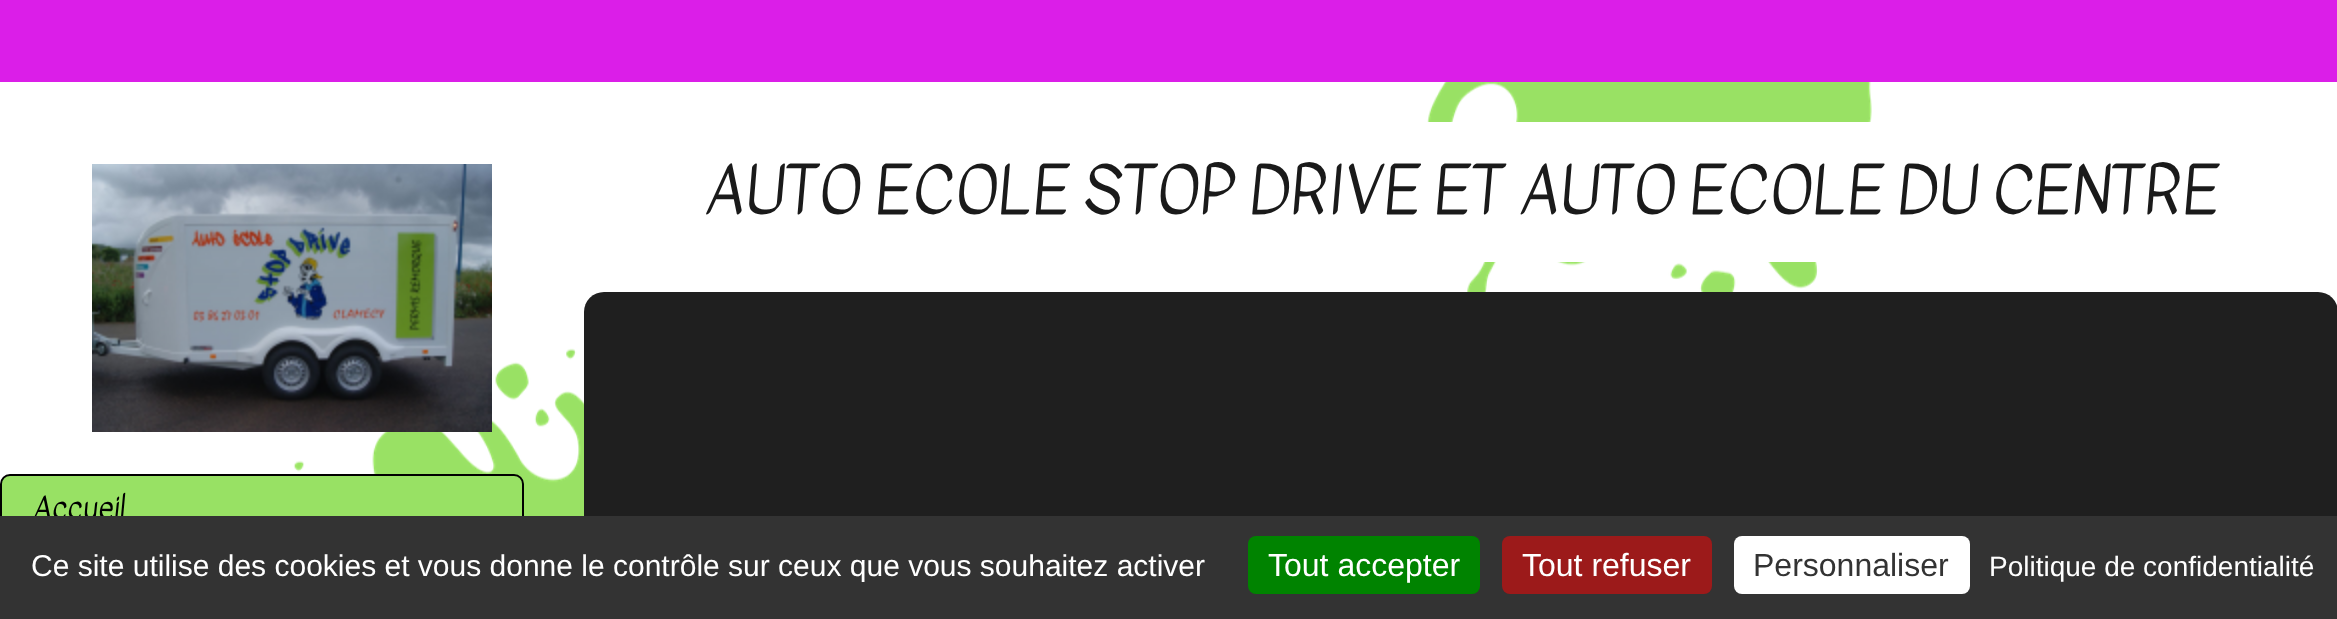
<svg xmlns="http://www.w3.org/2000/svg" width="2337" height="619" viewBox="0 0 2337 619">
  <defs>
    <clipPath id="clip1"><path d="M12 548h1214v34H12z"/></clipPath>
  </defs>
  <rect width="100%" height="100%" fill="#fff"/>
  <image x="293" y="82" width="1579" height="434" href="img/1.png"/>
  <path d="M0 0h2337v82H0z" fill="#db1ee8"/>
  <rect x="584" y="122" width="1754" height="140" rx="20" fill="#fff"/>
  <rect x="584" y="292" width="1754" height="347" rx="20" fill="#1f1f1f"/>
  <image x="92" y="164" width="400" height="268" href="img/2.png"/>
  <rect x="1" y="475" width="522" height="68" rx="9" fill="#98e164" stroke="#000" stroke-width="2"/>
  <text x="703" y="212" font-family="Kavivanar" font-size="64" fill="#1a1a1a">AUTO ECOLE STOP DRIVE ET AUTO ECOLE DU CENTRE</text>
  <text x="32" y="518" font-family="Kavivanar" font-size="30" fill="#000">Accueil</text>
  <path d="M0 516h2337v103H0z" fill="#333"/>
  <g clip-path="url(#clip1)">
    <text x="31" y="576" font-family="Liberation Sans" font-size="30" fill="#fff">Ce site utilise des cookies et vous donne le contrôle sur ceux que vous souhaitez activer</text>
  </g>
  <rect x="1248" y="536" width="232" height="58" rx="8" fill="#008300"/>
  <text x="1268" y="576" font-family="Liberation Sans" font-size="32" fill="#fff">Tout accepter</text>
  <rect x="1502" y="536" width="210" height="58" rx="8" fill="#9c1a1a"/>
  <text x="1522" y="576" font-family="Liberation Sans" font-size="32" fill="#fff">Tout refuser</text>
  <rect x="1734" y="536" width="236" height="58" rx="8" fill="#fff"/>
  <text x="1753" y="576" font-family="Liberation Sans" font-size="32" fill="#333">Personnaliser</text>
  <text x="1989" y="576" font-family="Liberation Sans" font-size="28" fill="#fff">Politique de confidentialité</text>
</svg>
